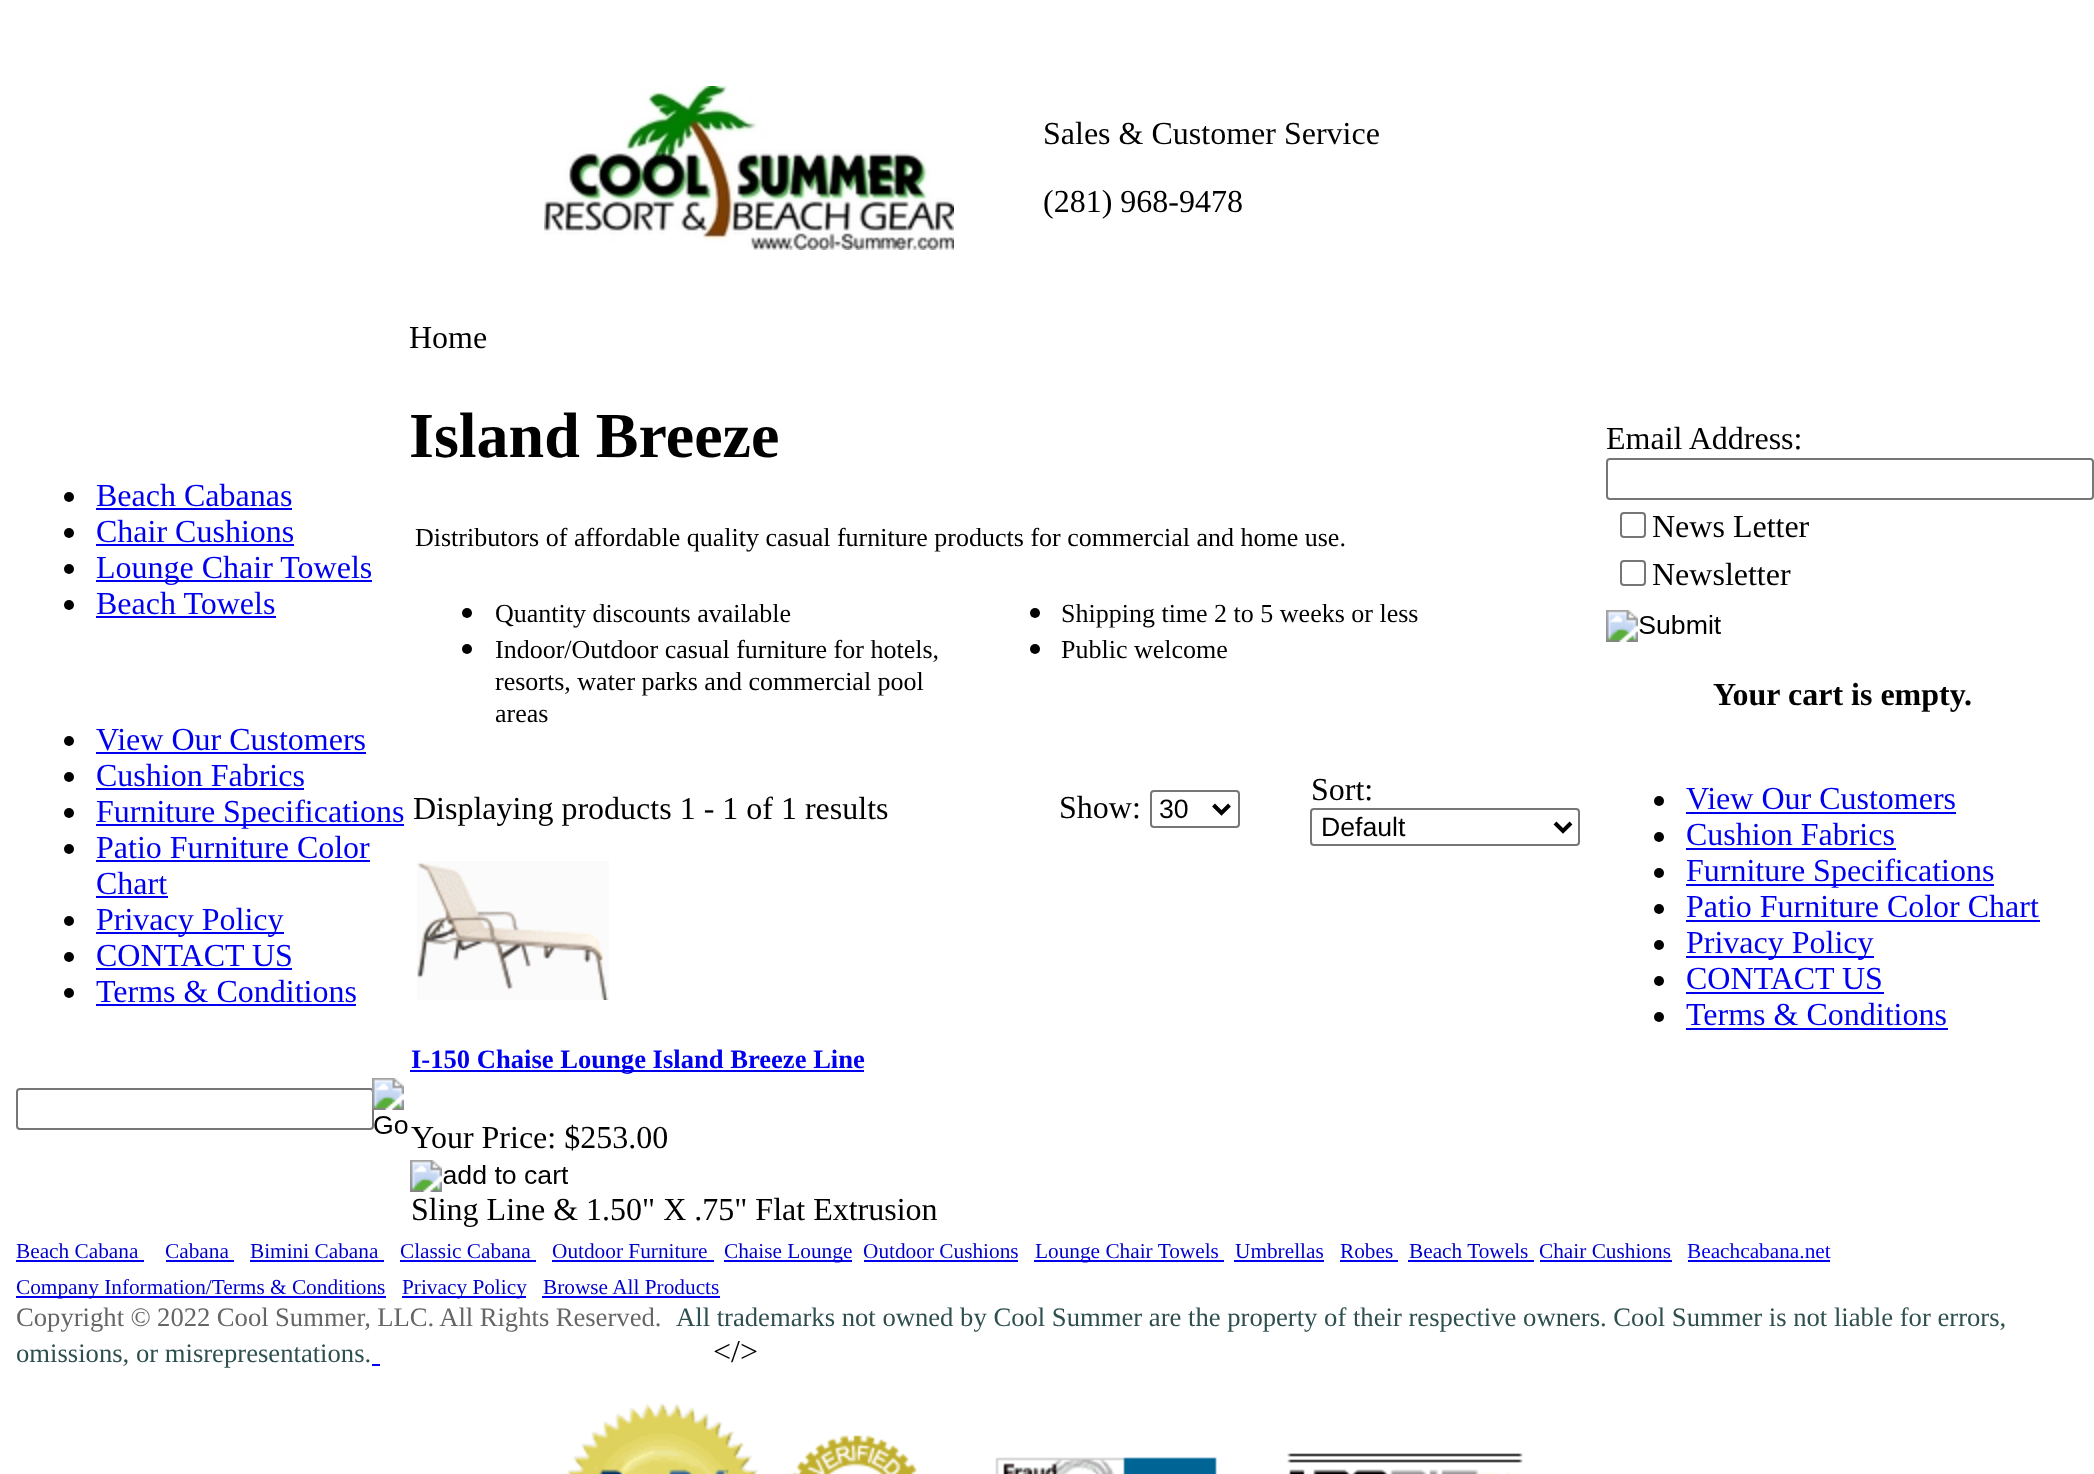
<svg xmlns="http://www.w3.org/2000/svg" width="2094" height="1474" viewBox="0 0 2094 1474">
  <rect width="100%" height="100%" fill="#fff"/>
  <image x="544" y="86" width="410" height="164" href="img/1.png"/>
  <circle cx="69" cy="497" r="5" fill="#000"/>
  <path d="M96 508h196v2H96z" fill="#00e"/>
  <circle cx="69" cy="533" r="5" fill="#000"/>
  <path d="M96 544h198v2H96z" fill="#00e"/>
  <circle cx="69" cy="569" r="5" fill="#000"/>
  <path d="M96 580h276v2H96z" fill="#00e"/>
  <circle cx="69" cy="605" r="5" fill="#000"/>
  <path d="M96 616h180v2H96z" fill="#00e"/>
  <circle cx="69" cy="741" r="5" fill="#000"/>
  <path d="M96 752h270v2H96z" fill="#00e"/>
  <circle cx="69" cy="777" r="5" fill="#000"/>
  <path d="M96 788h208v2H96z" fill="#00e"/>
  <circle cx="69" cy="813" r="5" fill="#000"/>
  <path d="M96 824h308v2H96z" fill="#00e"/>
  <circle cx="69" cy="849" r="5" fill="#000"/>
  <path d="M96 860h274v2H96z" fill="#00e"/>
  <path d="M96 896h72v2H96z" fill="#00e"/>
  <circle cx="69" cy="921" r="5" fill="#000"/>
  <path d="M96 932h188v2H96z" fill="#00e"/>
  <circle cx="69" cy="957" r="5" fill="#000"/>
  <path d="M96 968h196v2H96z" fill="#00e"/>
  <circle cx="69" cy="993" r="5" fill="#000"/>
  <path d="M96 1004h260v2H96z" fill="#00e"/>
  <rect x="17" y="1089" width="356" height="40" rx="3" fill="none" stroke="#767676" stroke-width="2"/>
  <image x="372" y="1078" width="36" height="56" href="img/2.png"/>
  <circle cx="467" cy="613" r="5" fill="#000"/>
  <circle cx="467" cy="649" r="5" fill="#000"/>
  <circle cx="1035" cy="613" r="5" fill="#000"/>
  <circle cx="1035" cy="649" r="5" fill="#000"/>
  <rect x="1151" y="791" width="88" height="36" rx="3" fill="none" stroke="#767676" stroke-width="2"/>
  <path d="M1213.5 805L1221.5 813L1229.5 805" fill="none" stroke="#000" stroke-width="4"/>
  <rect x="1311" y="809" width="268" height="36" rx="3" fill="none" stroke="#767676" stroke-width="2"/>
  <path d="M1555 823L1563 831L1571 823" fill="none" stroke="#000" stroke-width="4"/>
  <image x="417" y="861" width="192" height="139" href="img/3.png"/>
  <path d="M410 1070h454v2H410z" fill="#00e"/>
  <image x="410" y="1160" width="158" height="32" href="img/4.png"/>
  <rect x="1607" y="459" width="486" height="40" rx="3" fill="none" stroke="#767676" stroke-width="2"/>
  <rect x="1621" y="513" width="24" height="24" rx="3" fill="none" stroke="#767676" stroke-width="2"/>
  <rect x="1621" y="561" width="24" height="24" rx="3" fill="none" stroke="#767676" stroke-width="2"/>
  <image x="1606" y="610" width="115" height="32" href="img/5.png"/>
  <circle cx="1659" cy="801" r="5" fill="#000"/>
  <path d="M1686 812h270v2H1686z" fill="#00e"/>
  <circle cx="1659" cy="837" r="5" fill="#000"/>
  <path d="M1686 848h210v2H1686z" fill="#00e"/>
  <circle cx="1659" cy="873" r="5" fill="#000"/>
  <path d="M1686 884h308v2H1686z" fill="#00e"/>
  <circle cx="1659" cy="909" r="5" fill="#000"/>
  <path d="M1686 920h354v2H1686z" fill="#00e"/>
  <circle cx="1659" cy="945" r="5" fill="#000"/>
  <path d="M1686 956h188v2H1686z" fill="#00e"/>
  <circle cx="1659" cy="981" r="5" fill="#000"/>
  <path d="M1686 992h198v2H1686z" fill="#00e"/>
  <circle cx="1659" cy="1017" r="5" fill="#000"/>
  <path d="M1686 1028h262v2H1686z" fill="#00e"/>
  <path d="M16 1260h128v2H16z" fill="#00e"/>
  <path d="M166 1260h68v2H166z" fill="#00e"/>
  <path d="M250 1260h134v2H250z" fill="#00e"/>
  <path d="M400 1260h136v2H400z" fill="#00e"/>
  <path d="M552 1260h162v2H552z" fill="#00e"/>
  <path d="M724 1260h128v2H724z" fill="#00e"/>
  <path d="M864 1260h154v2H864z" fill="#00e"/>
  <path d="M1034 1260h190v2H1034z" fill="#00e"/>
  <path d="M1234 1260h90v2H1234z" fill="#00e"/>
  <path d="M1340 1260h58v2H1340z" fill="#00e"/>
  <path d="M1408 1260h126v2H1408z" fill="#00e"/>
  <path d="M1540 1260h132v2H1540z" fill="#00e"/>
  <path d="M1688 1260h142v2H1688z" fill="#00e"/>
  <path d="M16 1296h370v2H16z" fill="#00e"/>
  <path d="M402 1296h124v2H402z" fill="#00e"/>
  <path d="M542 1296h178v2H542z" fill="#00e"/>
  <path d="M372 1364h8v2H372z" fill="#00e"/>
  <image x="567" y="1403" width="191" height="71" href="img/6.png"/>
  <image x="791" y="1435" width="126" height="39" href="img/7.png"/>
  <image x="995" y="1457" width="222" height="17" href="img/8.png"/>
  <image x="1287" y="1453" width="236" height="21" href="img/9.png"/>
  <g font-family="Liberation Serif" font-size="32" fill="#000">
    <text x="1043" y="144">Sales &amp; Customer Service</text>
    <text x="1043" y="212">(281) 968-9478</text>
  </g>
  <g font-family="Liberation Serif" font-size="32" fill="#00e">
    <text x="96" y="506">Beach Cabanas</text>
    <text x="96" y="542">Chair Cushions</text>
    <text x="96" y="578">Lounge Chair Towels</text>
    <text x="96" y="614">Beach Towels</text>
    <text x="96" y="750">View Our Customers</text>
    <text x="96" y="786">Cushion Fabrics</text>
    <text x="96" y="822">Furniture Specifications</text>
    <text x="96" y="858">Patio Furniture Color</text>
    <text x="96" y="894">Chart</text>
    <text x="96" y="930">Privacy Policy</text>
    <text x="96" y="966">CONTACT US</text>
    <text x="96" y="1002">Terms &amp; Conditions</text>
  </g>
  <text x="409" y="348" font-family="Liberation Serif" font-size="32" fill="#000">Home</text>
  <text x="409" y="457" font-family="Liberation Serif" font-size="64" font-weight="bold" fill="#000">Island Breeze</text>
  <g font-family="Liberation Serif" font-size="26" fill="#000">
    <text x="415" y="546">Distributors of affordable quality casual furniture products for commercial and home use.</text>
    <text x="495" y="622">Quantity discounts available</text>
    <text x="495" y="658">Indoor/Outdoor casual furniture for hotels,</text>
    <text x="495" y="690">resorts, water parks and commercial pool</text>
    <text x="495" y="722">areas</text>
    <text x="1061" y="622">Shipping time 2 to 5 weeks or less</text>
    <text x="1061" y="658">Public welcome</text>
  </g>
  <g font-family="Liberation Serif" font-size="32" fill="#000">
    <text x="413" y="819">Displaying products 1 - 1 of 1 results</text>
    <text x="1059" y="818">Show:</text>
  </g>
  <text x="1159" y="818" font-family="Liberation Sans" font-size="26.65" fill="#000">30</text>
  <text x="1311" y="800" font-family="Liberation Serif" font-size="32" fill="#000">Sort:</text>
  <text x="1321" y="836" font-family="Liberation Sans" font-size="26.65" fill="#000">Default</text>
  <text x="411" y="1068" font-family="Liberation Serif" font-size="26.6" font-weight="bold" fill="#00e">I-150 Chaise Lounge Island Breeze Line</text>
  <g font-family="Liberation Serif" font-size="32" fill="#000">
    <text x="411" y="1148">Your Price: $253.00</text>
    <text x="411" y="1220">Sling Line &amp; 1.50" X .75" Flat Extrusion</text>
    <text x="1606" y="449">Email Address:</text>
    <text x="1652" y="537">News Letter</text>
    <text x="1652" y="585">Newsletter</text>
  </g>
  <text x="1713" y="705" font-family="Liberation Serif" font-size="32" font-weight="bold" fill="#000">Your cart is empty.</text>
  <g font-family="Liberation Serif" font-size="32" fill="#00e">
    <text x="1686" y="809">View Our Customers</text>
    <text x="1686" y="845">Cushion Fabrics</text>
    <text x="1686" y="881">Furniture Specifications</text>
    <text x="1686" y="917">Patio Furniture Color Chart</text>
    <text x="1686" y="953">Privacy Policy</text>
    <text x="1686" y="989">CONTACT US</text>
    <text x="1686" y="1025">Terms &amp; Conditions</text>
  </g>
  <g font-family="Liberation Serif" font-size="21.3" fill="#0000cd">
    <text x="16" y="1258">Beach Cabana</text>
    <text x="165" y="1258">Cabana</text>
    <text x="250" y="1258">Bimini Cabana</text>
    <text x="400" y="1258">Classic Cabana</text>
    <text x="552" y="1258">Outdoor Furniture</text>
    <text x="724" y="1258">Chaise Lounge</text>
    <text x="863" y="1258">Outdoor Cushions</text>
    <text x="1035" y="1258">Lounge Chair Towels</text>
    <text x="1235" y="1258">Umbrellas</text>
    <text x="1340" y="1258">Robes</text>
    <text x="1409" y="1258">Beach Towels</text>
    <text x="1539" y="1258">Chair Cushions</text>
  </g>
  <text x="1687" y="1258" font-family="Liberation Serif" font-size="21.3" fill="#00e">Beachcabana.net</text>
  <g font-family="Liberation Serif" font-size="21.3" fill="#0000cd">
    <text x="16" y="1294">Company Information/Terms &amp; Conditions</text>
    <text x="402" y="1294">Privacy Policy</text>
    <text x="543" y="1294">Browse All Products</text>
  </g>
  <text x="16" y="1326" word-spacing="-0.25" font-family="Liberation Serif" font-size="26.65" fill="#666">Copyright © 2022 Cool Summer, LLC. All Rights Reserved.</text>
  <g font-family="Liberation Serif" font-size="26.65" fill="#2f4f4f">
    <text x="676" y="1326">All trademarks not owned by Cool Summer are the property of their respective owners. Cool Summer is not liable for errors,</text>
    <text x="16" y="1362">omissions, or misrepresentations.</text>
  </g>
  <text x="713" y="1362" font-family="Liberation Serif" font-size="32" fill="#000">&lt;/&gt;</text>
</svg>
